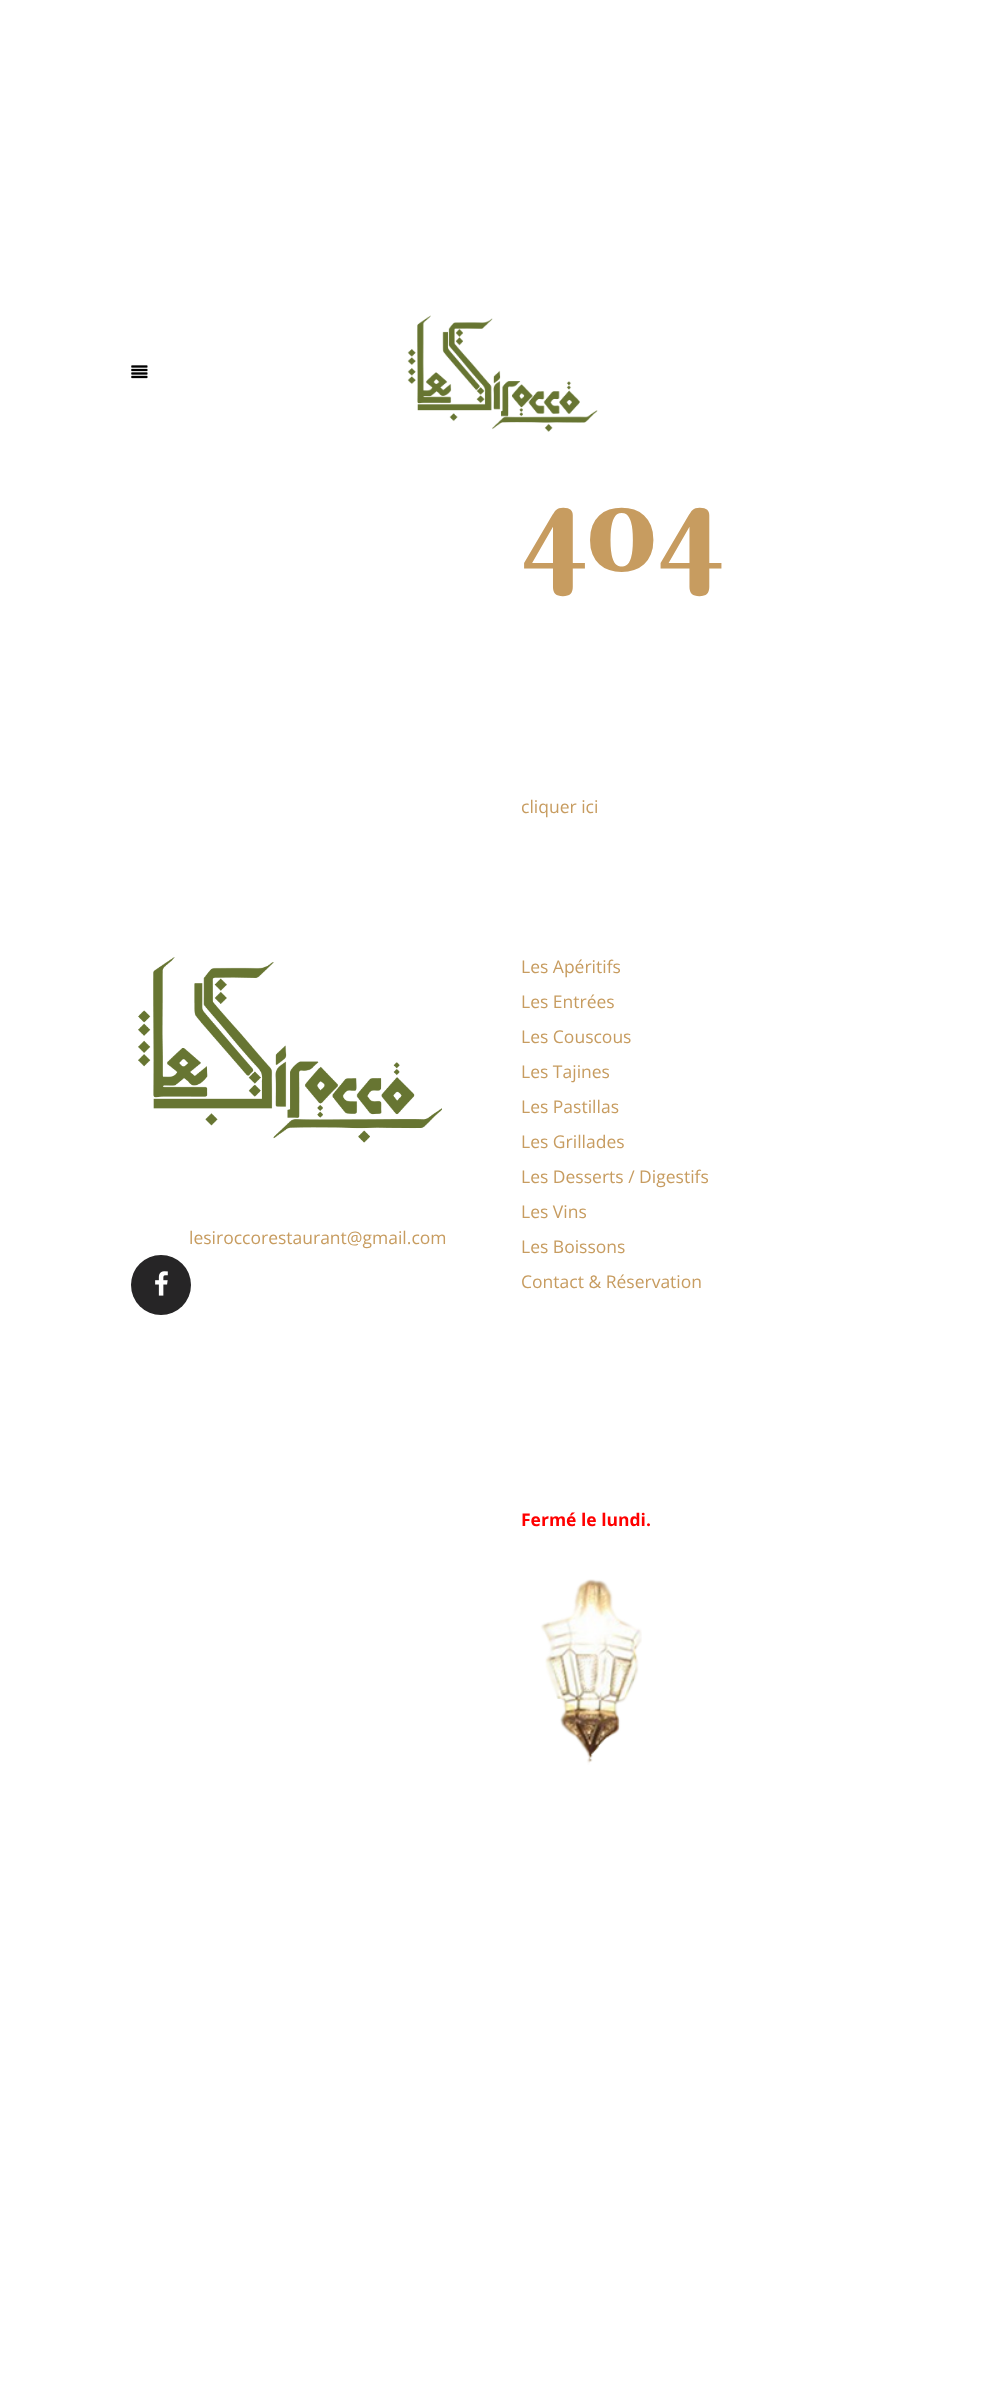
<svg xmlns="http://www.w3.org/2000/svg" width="1005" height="2395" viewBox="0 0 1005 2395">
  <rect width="100%" height="100%" fill="#fff"/>
  <image x="131" y="365" width="17" height="14" href="img/1.png"/>
  <image x="407" y="315" width="191" height="117" href="img/2.png"/>
  <image x="138" y="957" width="304" height="186" href="img/3.png"/>
  <circle cx="161" cy="1285" r="30" fill="#262526"/>
  <image x="155" y="1271" width="13" height="25" href="img/4.png"/>
  <image x="540" y="1579" width="102" height="186" href="img/5.png"/>
  <text x="521" y="571" font-family="Berkshire Swash" font-size="125" fill="#c79c60">404</text>
  <g font-family="Open Sans" font-size="17.5" fill="#c79c60">
    <text x="521" y="813">cliquer ici</text>
    <text x="189" y="1244">lesiroccorestaurant@gmail.com</text>
    <text x="521" y="973">Les Apéritifs</text>
    <text x="521" y="1008">Les Entrées</text>
    <text x="521" y="1043">Les Couscous</text>
    <text x="521" y="1078">Les Tajines</text>
    <text x="521" y="1113">Les Pastillas</text>
    <text x="521" y="1148">Les Grillades</text>
    <text x="521" y="1183">Les Desserts / Digestifs</text>
    <text x="521" y="1218">Les Vins</text>
    <text x="521" y="1253">Les Boissons</text>
    <text x="521" y="1288">Contact &amp; Réservation</text>
  </g>
  <text x="521" y="1526" font-family="Open Sans" font-size="17.5" font-weight="bold" fill="#f00">Fermé le lundi.</text>
</svg>
